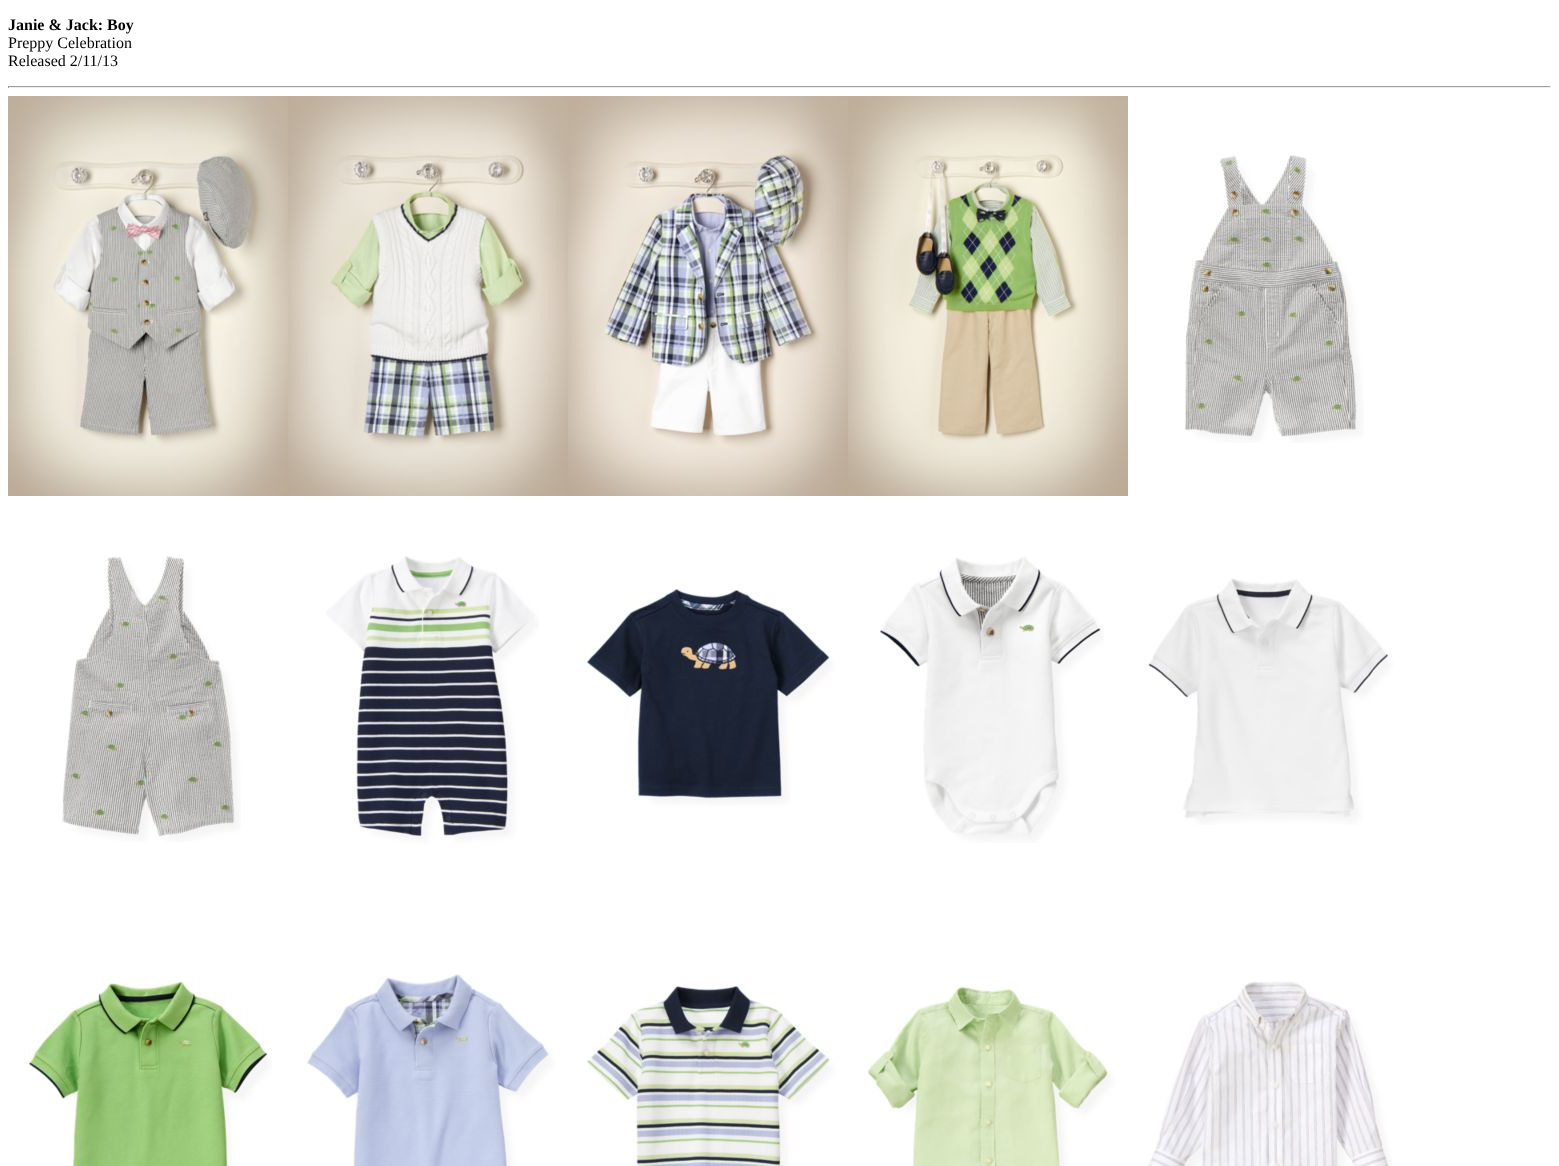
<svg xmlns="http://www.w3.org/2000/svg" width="1559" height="1166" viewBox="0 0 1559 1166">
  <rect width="100%" height="100%" fill="#fff"/>
  <path d="M8 86h1543v1H8z" fill="#9f9f9f"/>
  <path d="M1550 86h1v2H1550z" fill="#eee"/>
  <path d="M8 87h1543v1H8z" fill="#eee"/>
  <path d="M8 86h1v2H8z" fill="#9f9f9f"/>
  <image x="8" y="96" width="280" height="400" href="img/1.png"/>
  <image x="288" y="96" width="280" height="400" href="img/2.png"/>
  <image x="568" y="96" width="280" height="400" href="img/3.png"/>
  <image x="848" y="96" width="280" height="400" href="img/4.png"/>
  <image x="1184" y="152" width="180" height="291" href="img/5.png"/>
  <image x="62" y="554" width="179" height="288" href="img/6.png"/>
  <image x="326" y="556" width="213" height="288" href="img/7.png"/>
  <image x="584" y="584" width="251" height="222" href="img/8.png"/>
  <image x="880" y="556" width="224" height="287" href="img/9.png"/>
  <image x="1144" y="578" width="249" height="247" href="img/10.png"/>
  <image x="24" y="976" width="248" height="190" href="img/11.png"/>
  <image x="304" y="974" width="252" height="192" href="img/12.png"/>
  <image x="586" y="984" width="254" height="182" href="img/13.png"/>
  <image x="864" y="984" width="256" height="182" href="img/14.png"/>
  <image x="1148" y="981" width="244" height="185" href="img/15.png"/>
  <text x="8" y="30" font-family="Liberation Serif" font-size="16" font-weight="bold" fill="#000">Janie &amp; Jack: Boy</text>
  <g font-family="Liberation Serif" font-size="16" fill="#000">
    <text x="8" y="48">Preppy Celebration</text>
    <text x="8" y="66">Released 2/11/13</text>
  </g>
</svg>
